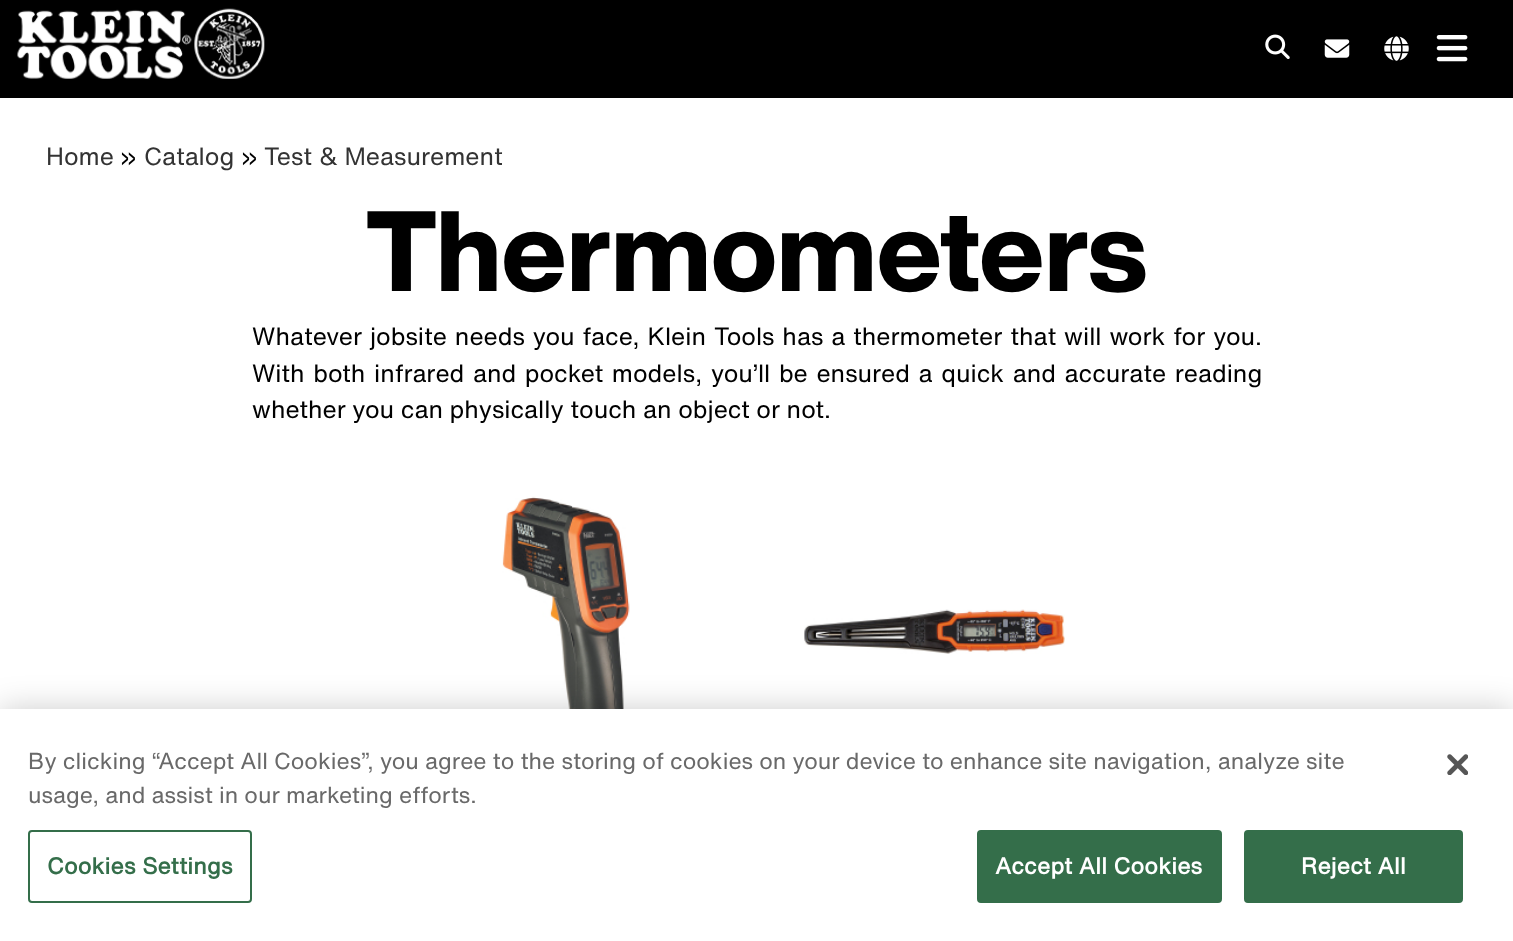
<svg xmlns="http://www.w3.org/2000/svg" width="1513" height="941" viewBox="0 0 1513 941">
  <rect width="100%" height="100%" fill="#fff"/>
  <path d="M0 0h1513v98H0z" fill="#000"/>
  <image x="17" y="8" width="248" height="71" href="img/1.png"/>
  <image x="1265" y="34" width="25" height="25" href="img/2.png"/>
  <image x="1324" y="39" width="26" height="19" href="img/3.png"/>
  <image x="1384" y="36" width="25" height="25" href="img/4.png"/>
  <image x="1436" y="35" width="32" height="27" href="img/5.png"/>
  <image x="502" y="496" width="128" height="213" href="img/6.png"/>
  <image x="804" y="609" width="261" height="45" href="img/7.png"/>
  <path d="M0 709h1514v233H0z" fill="#00000033" filter="blur(16px)"/>
  <path d="M0 709h1513v232H0z" fill="#fff"/>
  <rect x="29" y="831" width="222" height="71" rx="3" fill="none" stroke="#346e4a" stroke-width="2"/>
  <rect x="978" y="831" width="243" height="71" rx="3" fill="#346e4a" stroke="#346e4a" stroke-width="2"/>
  <rect x="1245" y="831" width="217" height="71" rx="3" fill="#346e4a" stroke="#346e4a" stroke-width="2"/>
  <image x="1447" y="754" width="21" height="21" href="img/8.png"/>
  <text x="46" y="165" font-family="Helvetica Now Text" font-size="24.5" fill="#333">Home</text>
  <text x="120" y="165" font-family="Helvetica Now Text" font-size="24.5" fill="#000">»</text>
  <text x="144" y="165" font-family="Helvetica Now Text" font-size="24.5" fill="#333">Catalog</text>
  <text x="241" y="165" font-family="Helvetica Now Text" font-size="24.5" fill="#000">»</text>
  <text x="264" y="165" font-family="Helvetica Now Text" font-size="24.5" fill="#333">Test &amp; Measurement</text>
  <text x="366" y="291" font-family="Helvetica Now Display" font-size="112" font-weight="800" fill="#000">Thermometers</text>
  <g font-family="Helvetica Now Text" font-size="24.5" fill="#000">
    <text x="252" y="345" word-spacing="1.3">Whatever jobsite needs you face, Klein Tools has a thermometer that will work for you.</text>
    <text x="252" y="382" word-spacing="2">With both infrared and pocket models, you’ll be ensured a quick and accurate reading</text>
    <text x="252" y="418">whether you can physically touch an object or not.</text>
  </g>
  <g font-family="Helvetica Now Text" font-size="22.75" fill="#696969">
    <text x="28" y="769">By clicking “Accept All Cookies”, you agree to the storing of cookies on your device to enhance site navigation, analyze site</text>
    <text x="28" y="803">usage, and assist in our marketing efforts.</text>
  </g>
  <text x="47" y="874" font-family="Helvetica Now Text" font-size="22.75" font-weight="bold" letter-spacing="0.25" fill="#346e4a">Cookies Settings</text>
  <g font-family="Helvetica Now Text" font-size="22.75" font-weight="bold" letter-spacing="0.25" fill="#fff">
    <text x="995" y="874">Accept All Cookies</text>
    <text x="1301" y="874">Reject All</text>
  </g>
</svg>
